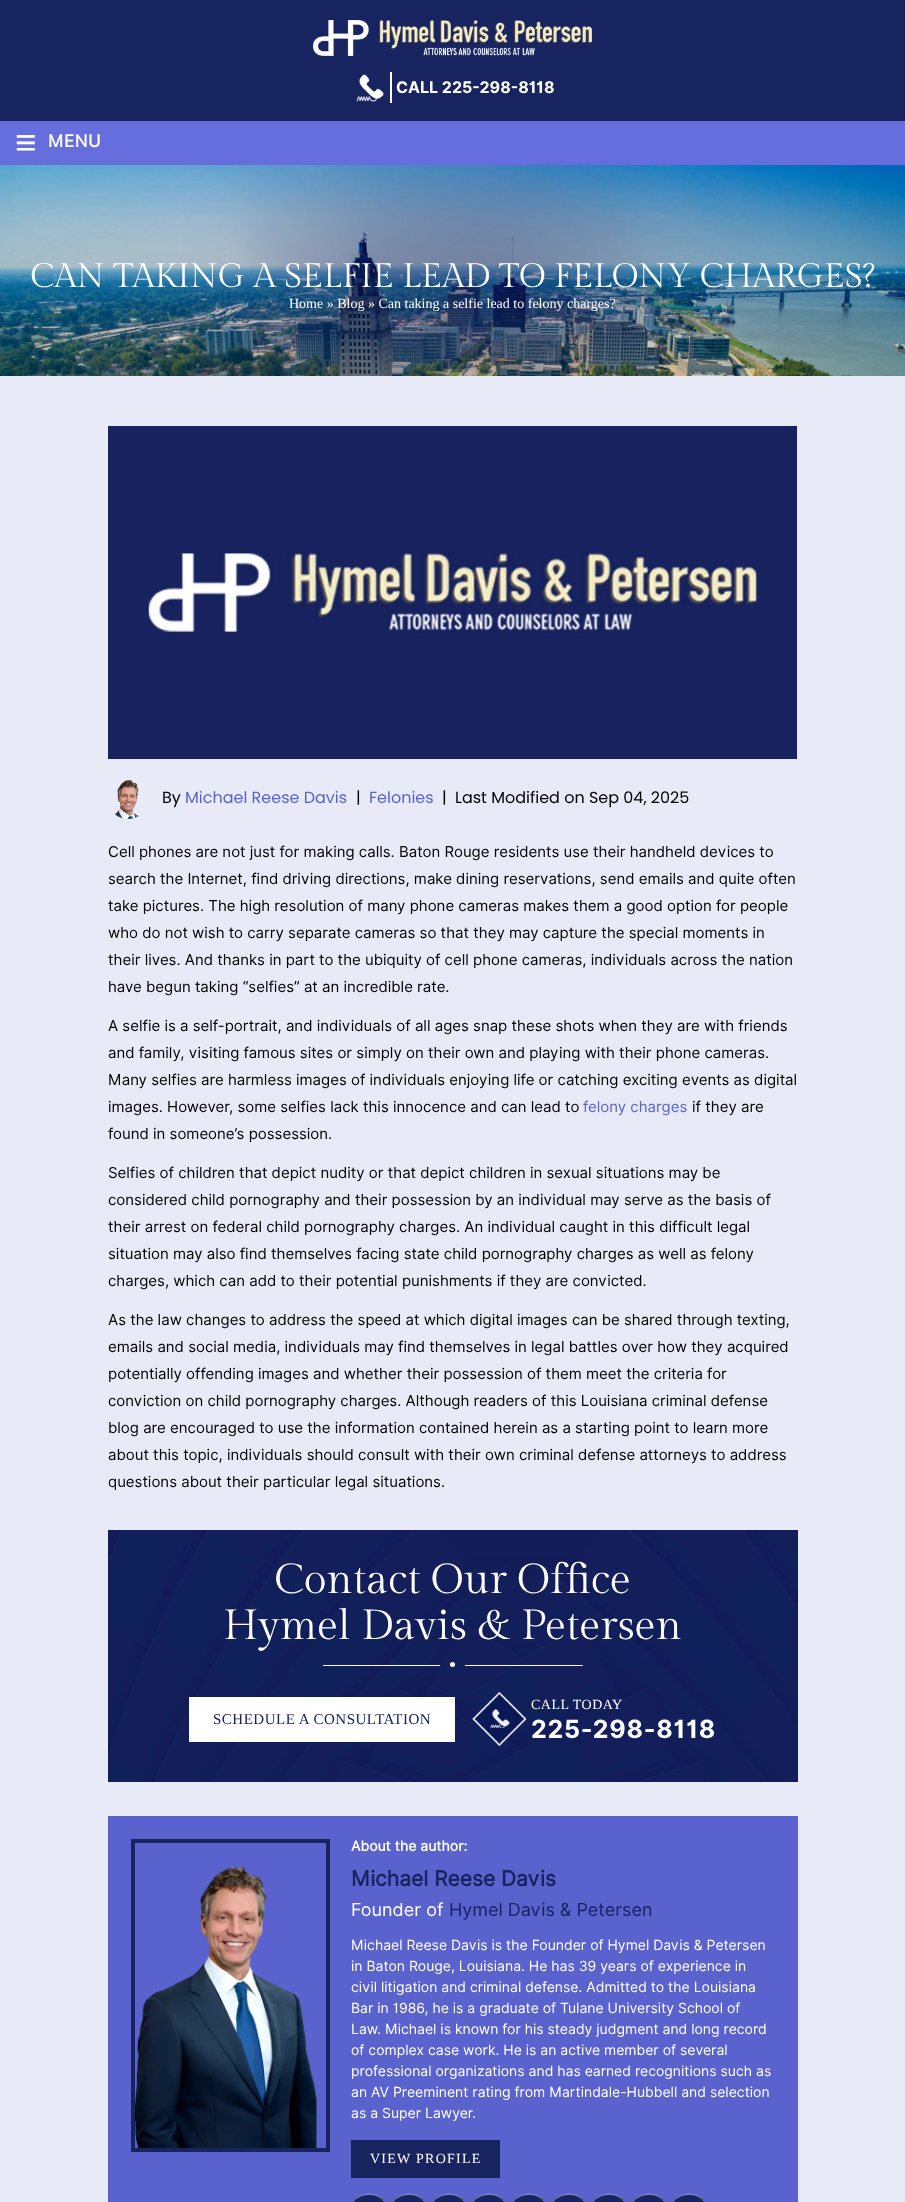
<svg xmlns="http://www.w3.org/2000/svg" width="905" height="2202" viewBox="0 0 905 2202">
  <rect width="100%" height="100%" fill="#e8ebf7"/>
  <path d="M0 0h905v121H0z" fill="#172460"/>
  <image x="313" y="20" width="279" height="36" href="img/1.png"/>
  <image x="356" y="74" width="28" height="28" href="img/2.png"/>
  <path d="M390 72h2v31H390z" fill="#fff"/>
  <path d="M0 121h905v44H0z" fill="#656edc"/>
  <image x="0" y="165" width="905" height="211" href="img/3.png"/>
  <image x="108" y="426" width="689" height="333" href="img/4.png"/>
  <image x="115" y="779" width="24" height="40" href="img/5.png"/>
  <image x="108" y="1530" width="690" height="252" href="img/6.png"/>
  <path d="M323 1665h260v1H323z" fill="#fff"/>
  <circle cx="452.5" cy="1664.5" r="7.5" fill="#fff" stroke="#111f5b" stroke-width="10"/>
  <path d="M189 1697h266v45H189z" fill="#fff"/>
  <image x="472" y="1691" width="55" height="56" href="img/7.png"/>
  <path d="M108 1816h690v386H108z" fill="#5a63cd"/>
  <path d="M133 1841h195v309H133z" fill="none" stroke="#172460" stroke-width="4"/>
  <image x="135" y="1866" width="182" height="282" href="img/8.png"/>
  <path d="M351 2140h149v38H351z" fill="#172460"/>
  <rect x="351" y="2194" width="36" height="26" rx="18" fill="#172460"/>
  <rect x="351.25" y="2194.25" width="35.5" height="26.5" rx="17.75" fill="none" stroke="#fff" stroke-width="0.5"/>
  <rect x="391" y="2194" width="36" height="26" rx="18" fill="#172460"/>
  <rect x="391.25" y="2194.25" width="35.5" height="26.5" rx="17.75" fill="none" stroke="#fff" stroke-width="0.5"/>
  <rect x="431" y="2194" width="36" height="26" rx="18" fill="#172460"/>
  <rect x="431.25" y="2194.25" width="35.5" height="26.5" rx="17.75" fill="none" stroke="#fff" stroke-width="0.5"/>
  <rect x="471" y="2194" width="36" height="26" rx="18" fill="#172460"/>
  <rect x="471.25" y="2194.25" width="35.5" height="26.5" rx="17.75" fill="none" stroke="#fff" stroke-width="0.5"/>
  <rect x="511" y="2194" width="36" height="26" rx="18" fill="#172460"/>
  <rect x="511.25" y="2194.25" width="35.5" height="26.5" rx="17.75" fill="none" stroke="#fff" stroke-width="0.5"/>
  <rect x="551" y="2194" width="36" height="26" rx="18" fill="#172460"/>
  <rect x="551.25" y="2194.25" width="35.5" height="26.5" rx="17.75" fill="none" stroke="#fff" stroke-width="0.5"/>
  <rect x="591" y="2194" width="36" height="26" rx="18" fill="#172460"/>
  <rect x="591.25" y="2194.25" width="35.5" height="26.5" rx="17.75" fill="none" stroke="#fff" stroke-width="0.5"/>
  <rect x="631" y="2194" width="36" height="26" rx="18" fill="#172460"/>
  <rect x="631.25" y="2194.25" width="35.5" height="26.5" rx="17.75" fill="none" stroke="#fff" stroke-width="0.5"/>
  <rect x="671" y="2194" width="36" height="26" rx="18" fill="#172460"/>
  <rect x="671.25" y="2194.25" width="35.5" height="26.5" rx="17.75" fill="none" stroke="#fff" stroke-width="0.5"/>
  <text x="396" y="93" font-family="'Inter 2'" font-size="16" font-weight="bold" fill="#fff">CALL 225-298-8118</text>
  <text x="15" y="155" font-family="Liberation Sans" font-size="37" font-weight="bold" fill="#fff">≡</text>
  <text x="48" y="147" font-family="Inter" font-size="17" font-weight="bold" letter-spacing="0.5" fill="#fff">MENU</text>
  <text x="30" y="287" font-family="Gilda Display" font-size="34" fill="#fff">CAN TAKING A SELFIE LEAD TO FELONY CHARGES?</text>
  <text x="289" y="308" font-family="Liberation Serif" font-size="14" fill="#fff">Home » Blog » Can taking a selfie lead to felony charges?</text>
  <text x="162" y="803" font-family="Poppins" font-size="16" fill="#000">By</text>
  <text x="185" y="803" font-family="Poppins" font-size="16" fill="#5a63cd">Michael Reese Davis</text>
  <text x="356" y="803" font-family="Poppins" font-size="16" fill="#000">|</text>
  <text x="369" y="803" font-family="Poppins" font-size="16" fill="#5a63cd">Felonies</text>
  <g font-family="Poppins" font-size="16" fill="#000">
    <text x="442" y="803">|</text>
    <text x="455" y="803">Last Modified on Sep 04, 2025</text>
  </g>
  <g font-family="Inter" font-size="15" fill="#000">
    <text x="108" y="857">Cell phones are not just for making calls. Baton Rouge residents use their handheld devices to</text>
    <text x="108" y="884">search the Internet, find driving directions, make dining reservations, send emails and quite often</text>
    <text x="108" y="911">take pictures. The high resolution of many phone cameras makes them a good option for people</text>
    <text x="108" y="938">who do not wish to carry separate cameras so that they may capture the special moments in</text>
    <text x="108" y="965">their lives. And thanks in part to the ubiquity of cell phone cameras, individuals across the nation</text>
    <text x="108" y="992">have begun taking “selfies” at an incredible rate.</text>
    <text x="108" y="1031">A selfie is a self-portrait, and individuals of all ages snap these shots when they are with friends</text>
    <text x="108" y="1058">and family, visiting famous sites or simply on their own and playing with their phone cameras.</text>
    <text x="108" y="1085">Many selfies are harmless images of individuals enjoying life or catching exciting events as digital</text>
    <text x="108" y="1112">images. However, some selfies lack this innocence and can lead to</text>
  </g>
  <text x="583" y="1112" font-family="Inter" font-size="15" fill="#5a63cd">felony charges</text>
  <g font-family="Inter" font-size="15" fill="#000">
    <text x="692" y="1112">if they are</text>
    <text x="108" y="1139">found in someone’s possession.</text>
    <text x="108" y="1178">Selfies of children that depict nudity or that depict children in sexual situations may be</text>
    <text x="108" y="1205">considered child pornography and their possession by an individual may serve as the basis of</text>
    <text x="108" y="1232">their arrest on federal child pornography charges. An individual caught in this difficult legal</text>
    <text x="108" y="1259">situation may also find themselves facing state child pornography charges as well as felony</text>
    <text x="108" y="1286">charges, which can add to their potential punishments if they are convicted.</text>
    <text x="108" y="1325">As the law changes to address the speed at which digital images can be shared through texting,</text>
    <text x="108" y="1352">emails and social media, individuals may find themselves in legal battles over how they acquired</text>
    <text x="108" y="1379">potentially offending images and whether their possession of them meet the criteria for</text>
    <text x="108" y="1406">conviction on child pornography charges. Although readers of this Louisiana criminal defense</text>
    <text x="108" y="1433">blog are encouraged to use the information contained herein as a starting point to learn more</text>
    <text x="108" y="1460">about this topic, individuals should consult with their own criminal defense attorneys to address</text>
    <text x="108" y="1487">questions about their particular legal situations.</text>
  </g>
  <g font-family="Gilda Display" font-size="42" fill="#fff">
    <text x="274" y="1593">Contact Our Office</text>
    <text x="223" y="1639">Hymel Davis &amp; Petersen</text>
  </g>
  <text x="213" y="1724" font-family="Liberation Serif" font-size="15" letter-spacing="0.5" fill="#172460">SCHEDULE A CONSULTATION</text>
  <text x="531" y="1709" font-family="Liberation Serif" font-size="14" letter-spacing="0.5" fill="#fff">CALL TODAY</text>
  <text x="531" y="1738" font-family="'Inter 2'" font-size="25" font-weight="bold" letter-spacing="0.75" fill="#fff">225-298-8118</text>
  <text x="351" y="1851" font-family="Inter" font-size="14" font-weight="bold" fill="#fff">About the author:</text>
  <text x="351" y="1886" font-family="Inter" font-size="21" font-weight="bold" fill="#172460">Michael Reese Davis</text>
  <text x="351" y="1916" font-family="Inter" font-size="18" fill="#fff">Founder of</text>
  <text x="449" y="1916" font-family="Inter" font-size="18" fill="#172460">Hymel Davis &amp; Petersen</text>
  <g font-family="Inter" font-size="14" fill="#fff">
    <text x="351" y="1950">Michael Reese Davis is the Founder of Hymel Davis &amp; Petersen</text>
    <text x="351" y="1971">in Baton Rouge, Louisiana. He has 39 years of experience in</text>
    <text x="351" y="1992">civil litigation and criminal defense. Admitted to the Louisiana</text>
    <text x="351" y="2013">Bar in 1986, he is a graduate of Tulane University School of</text>
    <text x="351" y="2034">Law. Michael is known for his steady judgment and long record</text>
    <text x="351" y="2055">of complex case work. He is an active member of several</text>
    <text x="351" y="2076">professional organizations and has earned recognitions such as</text>
    <text x="351" y="2097">an AV Preeminent rating from Martindale-Hubbell and selection</text>
    <text x="351" y="2118">as a Super Lawyer.</text>
  </g>
  <text x="370" y="2163" font-family="Liberation Serif" font-size="14" letter-spacing="1.25" fill="#fff">VIEW PROFILE</text>
</svg>
